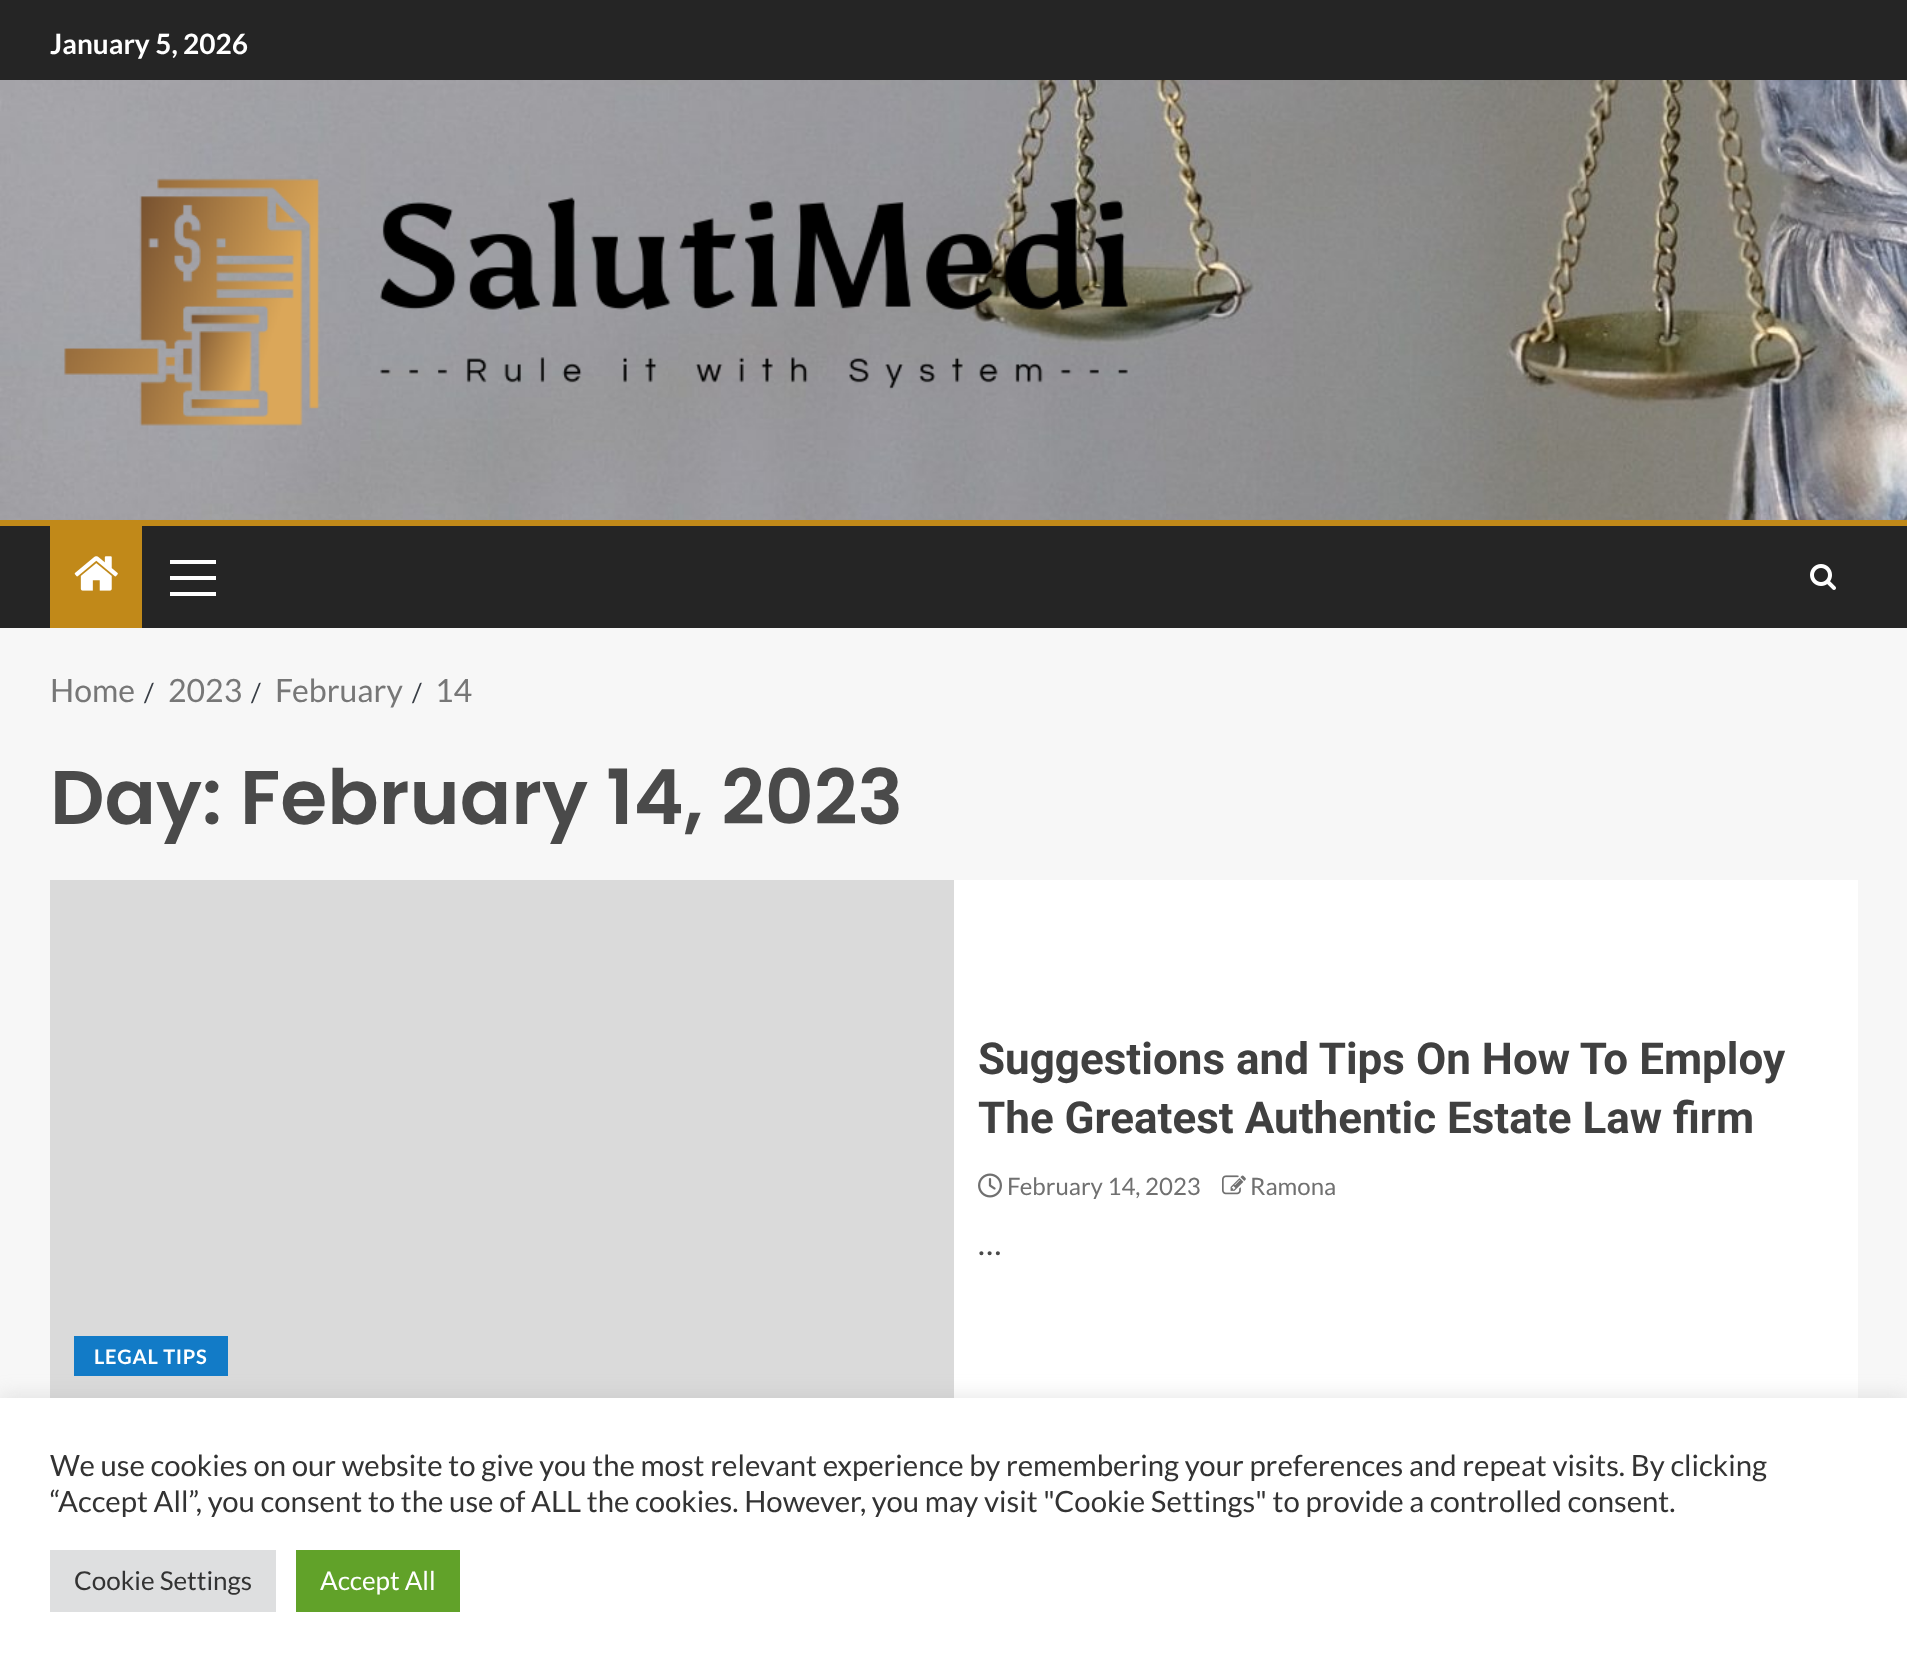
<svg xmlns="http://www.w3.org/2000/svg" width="1907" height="1672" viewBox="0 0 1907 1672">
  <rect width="100%" height="100%" fill="#f7f7f7"/>
  <path d="M0 0h1907v80H0z" fill="#252525"/>
  <image x="0" y="80" width="1907" height="440" href="img/1.png"/>
  <image x="64" y="178" width="1064" height="248" href="img/2.png"/>
  <path d="M0 526h1907v102H0z" fill="#252525"/>
  <path d="M0 520h1907v6H0z" fill="#c18919"/>
  <path d="M50 526h92v102H50z" fill="#c18919"/>
  <image x="74" y="556" width="44" height="35" href="img/3.png"/>
  <path d="M170 576h46v4H170z" fill="#fff"/>
  <path d="M170 560h46v4H170z" fill="#fff"/>
  <path d="M170 592h46v4H170z" fill="#fff"/>
  <image x="1810" y="564" width="26" height="26" href="img/4.png"/>
  <path d="M954 880h904v518H954z" fill="#fff"/>
  <image x="978" y="1173" width="24" height="25" href="img/5.png"/>
  <image x="1222" y="1175" width="24" height="20" href="img/6.png"/>
  <path d="M50 880h904v518H50z" fill="#dadada"/>
  <path d="M74 1336h154v40H74z" fill="#127bc7"/>
  <path d="M0 1396h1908v274H0z" fill="#acabab4d" filter="blur(10px)"/>
  <path d="M0 1398h1907v274H0z" fill="#fff"/>
  <path d="M50 1550h226v62H50z" fill="#dedfe0"/>
  <path d="M296 1550h164v62H296z" fill="#61a229"/>
  <text x="50" y="54" font-family="Lato" font-size="28" font-weight="bold" fill="#fff">January 5, 2026</text>
  <text x="50" y="702" font-family="Lato" font-size="32" fill="#777">Home</text>
  <text x="144" y="702" font-family="Lato" font-size="26" fill="#393e46">/</text>
  <text x="168" y="702" font-family="Lato" font-size="32" fill="#777">2023</text>
  <text x="251" y="702" font-family="Lato" font-size="26" fill="#393e46">/</text>
  <text x="275" y="702" font-family="Lato" font-size="32" fill="#777">February</text>
  <text x="412" y="702" font-family="Lato" font-size="26" fill="#393e46">/</text>
  <text x="435" y="702" font-family="Lato" font-size="32" fill="#777">14</text>
  <text x="50" y="824" font-family="Poppins" font-size="76" font-weight="600" fill="#4a4a4a">Day: February 14, 2023</text>
  <g font-family="Roboto" font-size="44" font-weight="bold" fill="#404040">
    <text x="978" y="1074">Suggestions and Tips On How To Employ</text>
    <text x="978" y="1133">The Greatest Authentic Estate Law firm</text>
  </g>
  <g font-family="Lato" font-size="24" fill="#707070">
    <text x="1007" y="1195">February 14, 2023</text>
    <text x="1250" y="1195">Ramona</text>
  </g>
  <text x="978" y="1255" font-family="Lato" font-size="32" fill="#4a4a4a">…</text>
  <text x="94" y="1364" font-family="Lato" font-size="20" font-weight="bold" letter-spacing="0.75" fill="#fff">LEGAL TIPS</text>
  <g font-family="Lato" font-size="29.33" fill="#333">
    <text x="50" y="1476">We use cookies on our website to give you the most relevant experience by remembering your preferences and repeat visits. By clicking</text>
    <text x="50" y="1512">“Accept All”, you consent to the use of ALL the cookies. However, you may visit "Cookie Settings" to provide a controlled consent.</text>
  </g>
  <text x="74" y="1590" font-family="Lato" font-size="26" fill="#333">Cookie Settings</text>
  <text x="320" y="1590" font-family="Lato" font-size="26" fill="#fff">Accept All</text>
</svg>
